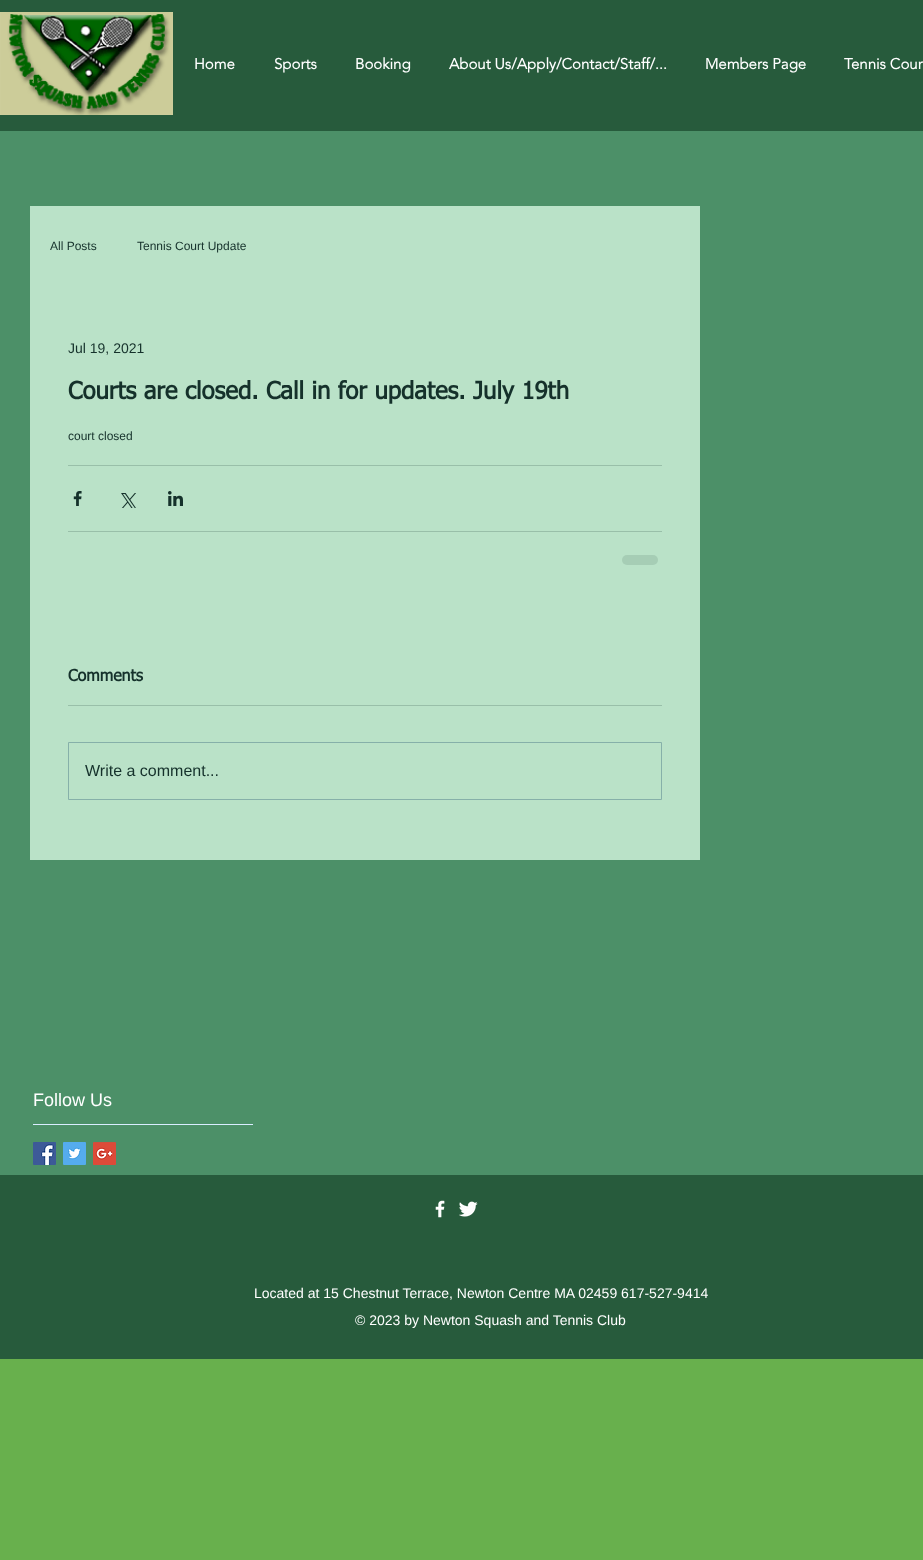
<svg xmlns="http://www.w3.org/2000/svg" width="923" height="1560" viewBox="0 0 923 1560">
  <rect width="100%" height="100%" fill="#68b04d"/>
  <path d="M0 0h923v131H0z" fill="#275b3c"/>
  <image x="0" y="12" width="173" height="103" href="img/1.png"/>
  <path d="M0 131h923v1044H0z" fill="#4c9068"/>
  <path d="M30 206h670v654H30z" fill="#bae2c8"/>
  <path d="M68 465h594v1H68z" fill="#99bfa9"/>
  <image x="73" y="491" width="9" height="15" href="img/2.png"/>
  <image x="121" y="493" width="15" height="15" href="img/3.png"/>
  <image x="168" y="491" width="15" height="15" href="img/4.png"/>
  <path d="M68 531h594v1H68z" fill="#99bfa9"/>
  <rect x="622" y="555" width="36" height="10" rx="5" fill="#a6cdb5"/>
  <path d="M68 705h594v1H68z" fill="#99bfa9"/>
  <path d="M68.5 742.5h593v57H68.5z" fill="none" stroke="#86b0a9"/>
  <path d="M33 1124h220v1H33z" fill="#daedff"/>
  <image x="33" y="1142" width="23" height="23" href="img/5.png"/>
  <image x="63" y="1142" width="23" height="23" href="img/6.png"/>
  <image x="93" y="1142" width="23" height="23" href="img/7.png"/>
  <path d="M0 1175h923v184H0z" fill="#275b3c"/>
  <image x="435" y="1200" width="10" height="18" href="img/8.png"/>
  <image x="459" y="1201" width="19" height="16" href="img/9.png"/>
  <g font-family="'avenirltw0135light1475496'" font-size="15" font-weight="bold" fill="#fff">
    <text x="194" y="69">Home</text>
    <text x="274" y="69">Sports</text>
    <text x="355" y="69">Booking</text>
    <text x="449" y="69">About Us/Apply/Contact/Staff/...</text>
    <text x="705" y="69">Members Page</text>
    <text x="844" y="69">Tennis Cour</text>
  </g>
  <g font-family="Liberation Sans" font-size="12" fill="#15312b">
    <text x="50" y="250">All Posts</text>
    <text x="137" y="250">Tennis Court Update</text>
  </g>
  <text x="68" y="353" font-family="Liberation Sans" font-size="14" fill="#15312b">Jul 19, 2021</text>
  <text x="68" y="399" font-family="tahoma" font-size="24" font-weight="bold" fill="#15312b">Courts are closed. Call in for updates. July 19th</text>
  <text x="68" y="440" font-family="Liberation Sans" font-size="12" fill="#15312b">court closed</text>
  <text x="68" y="681" font-family="tahoma" font-size="16" font-weight="bold" fill="#15312b">Comments</text>
  <text x="85" y="776" font-family="Liberation Sans" font-size="16" fill="#15312b">Write a comment...</text>
  <text x="33" y="1106" font-family="Liberation Sans" font-size="18" fill="#fff">Follow Us</text>
  <g font-family="Liberation Sans" font-size="14" fill="#fff">
    <text x="254" y="1298">Located at 15 Chestnut Terrace, Newton Centre MA 02459 617-527-9414</text>
    <text x="355" y="1325">© 2023 by Newton Squash and Tennis Club</text>
  </g>
</svg>
